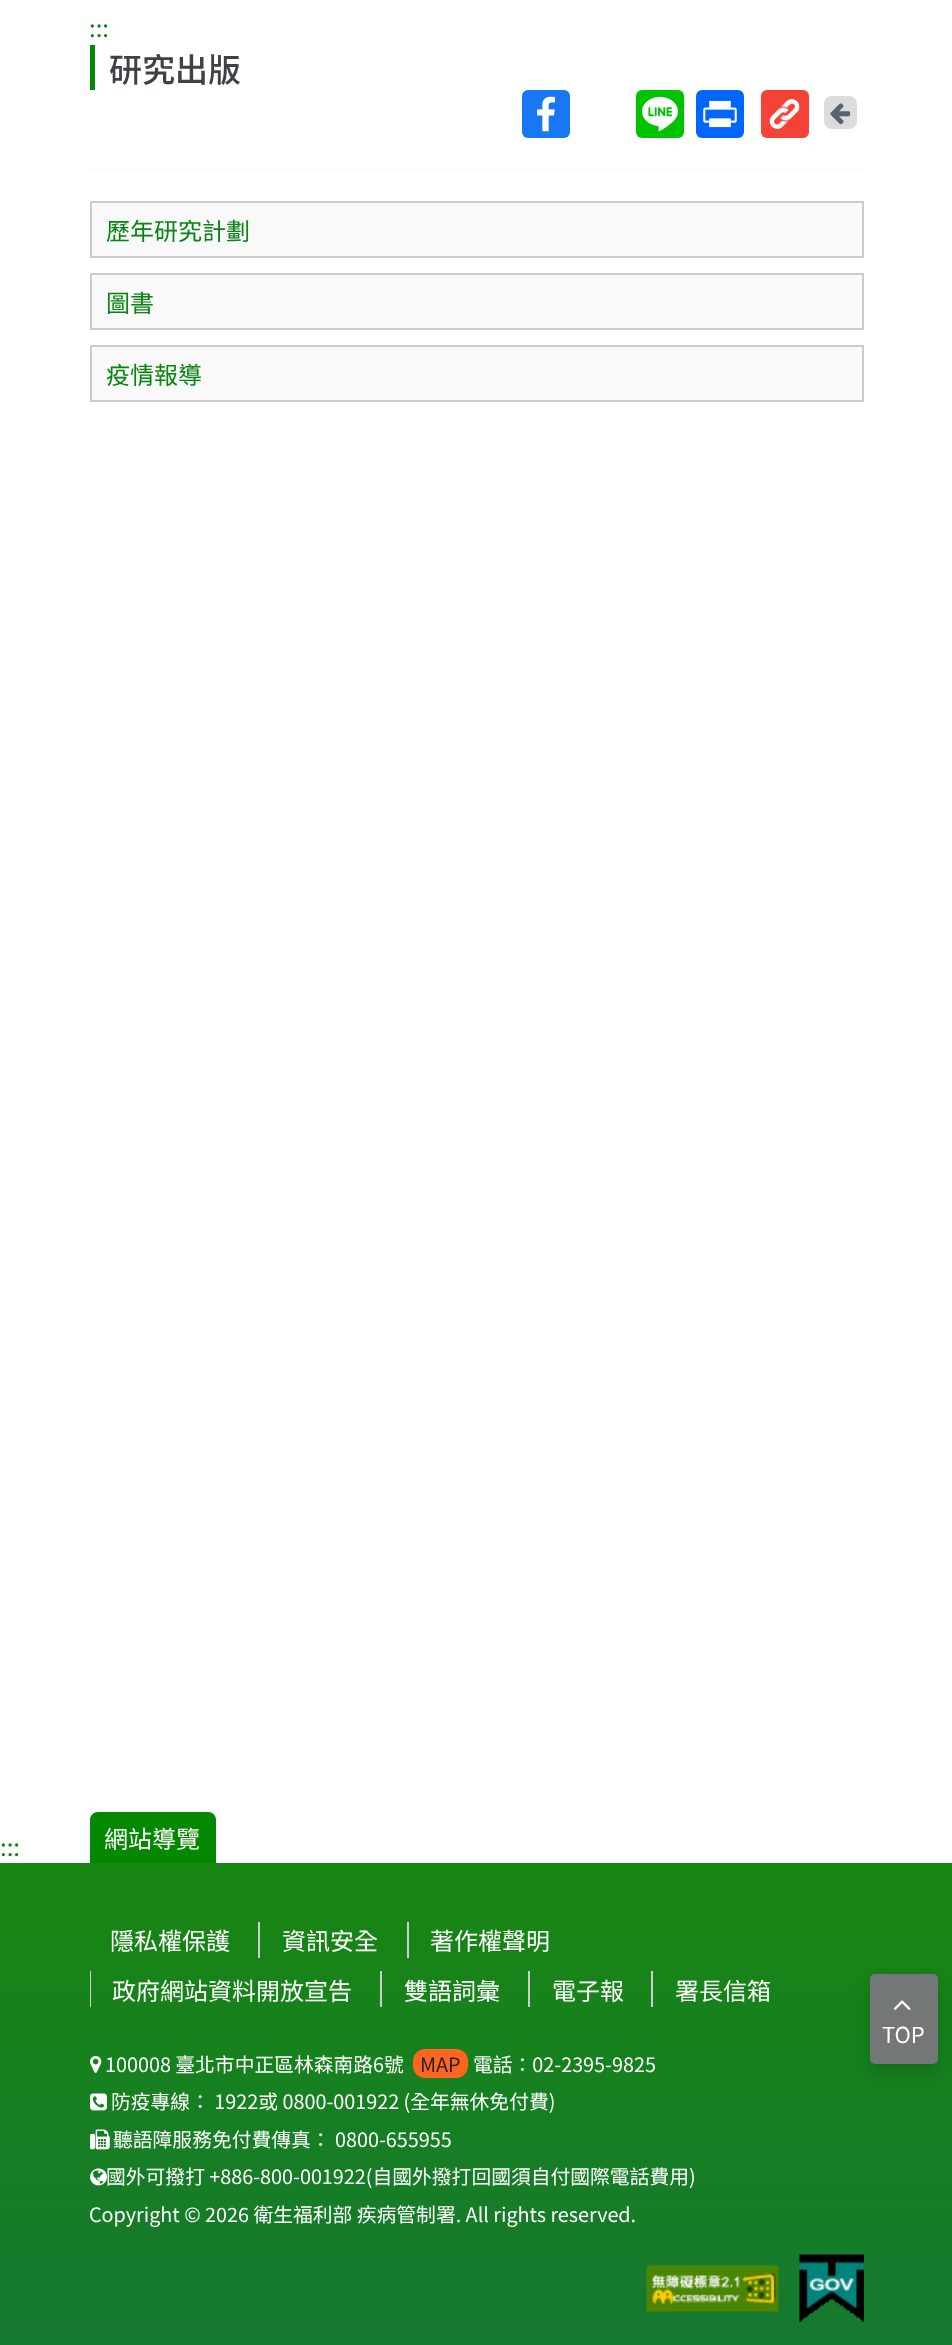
<svg xmlns="http://www.w3.org/2000/svg" width="952" height="2345" viewBox="0 0 952 2345">
  <defs>
    <linearGradient id="g1" gradientUnits="userSpaceOnUse" x1="476" y1="1863" x2="476" y2="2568"><stop offset="0" stop-color="#188612"/><stop offset="1" stop-color="#14723e"/></linearGradient>
  </defs>
  <rect width="100%" height="100%" fill="#fff"/>
  <path d="M90 45h5v45H90z" fill="#048800"/>
  <rect x="522" y="90" width="48" height="48" rx="6" fill="#1877f2"/>
  <image x="537" y="96" width="18" height="36" href="img/1.png"/>
  <rect x="636" y="90" width="48" height="48" rx="6" fill="#00c300"/>
  <image x="642" y="96" width="36" height="36" href="img/2.png"/>
  <rect x="696" y="90" width="48" height="48" rx="6" fill="#0166ff"/>
  <image x="703" y="100" width="34" height="28" href="img/3.png"/>
  <rect x="761" y="90" width="48" height="48" rx="6" fill="#f44336"/>
  <image x="769" y="99" width="31" height="30" href="img/4.png"/>
  <rect x="824" y="96" width="33" height="33" rx="8" fill="#dcdcdc"/>
  <image x="830" y="103" width="21" height="22" href="img/5.png"/>
  <path d="M90 168h774v3H90z" fill="#fbfbfb"/>
  <path d="M91 202h772v55H91z" fill="#f9f9f9" stroke="#ccc" stroke-width="2"/>
  <path d="M91 274h772v55H91z" fill="#f9f9f9" stroke="#ccc" stroke-width="2"/>
  <path d="M91 346h772v55H91z" fill="#f9f9f9" stroke="#ccc" stroke-width="2"/>
  <path d="M98 1812H208C212.5 1812 216 1815.5 216 1820V1863H90V1820C90 1815.5 93.5 1812 98 1812Z" fill="#048800"/>
  <path d="M0 1863h952v482H0z" fill="url(#g1)"/>
  <path d="M258 1922h2v36H258z" fill="#ccc"/>
  <path d="M407 1922h2v36H407z" fill="#ccc"/>
  <path d="M90 1971h1v36H90z" fill="#ccc"/>
  <path d="M380 1971h2v36H380z" fill="#ccc"/>
  <path d="M528 1971h2v36H528z" fill="#ccc"/>
  <path d="M651 1971h2v36H651z" fill="#ccc"/>
  <image x="90" y="2055" width="12" height="18" href="img/6.png"/>
  <rect x="413" y="2049" width="55" height="29" rx="12" fill="#ff651f"/>
  <image x="90" y="2093" width="17" height="18" href="img/7.png"/>
  <image x="90" y="2129" width="20" height="21" href="img/8.png"/>
  <image x="90" y="2168" width="17" height="18" href="img/9.png"/>
  <image x="646" y="2265" width="133" height="47" href="img/10.png"/>
  <image x="799" y="2254" width="65" height="68" href="img/11.png"/>
  <rect x="870" y="1983" width="68" height="90" rx="5" fill="#00000026" filter="blur(9px)"/>
  <rect x="870" y="1974" width="68" height="90" rx="5" fill="#747778"/>
  <image x="893" y="2000" width="18" height="10" href="img/12.png"/>
  <text x="89" y="37" font-family="Noto Sans TC" font-size="24" fill="#068511">:::</text>
  <text x="109" y="82" font-family="Noto Sans TC" font-size="33" font-weight="500" fill="#3d4245">研究出版</text>
  <g font-family="Noto Sans TC" font-size="24" fill="#068511">
    <text x="106" y="240">歷年研究計劃</text>
    <text x="106" y="312">圖書</text>
    <text x="106" y="384">疫情報導</text>
    <text x="0" y="1856">:::</text>
  </g>
  <g font-family="Noto Sans TC" font-size="24" fill="#fff">
    <text x="104" y="1848">網站導覽</text>
    <text x="110" y="1950">隱私權保護</text>
    <text x="282" y="1950">資訊安全</text>
    <text x="430" y="1950">著作權聲明</text>
    <text x="112" y="2000">政府網站資料開放宣告</text>
    <text x="404" y="2000">雙語詞彙</text>
    <text x="552" y="2000">電子報</text>
    <text x="675" y="2000">署長信箱</text>
  </g>
  <text x="105" y="2072" font-family="Noto Sans TC" font-size="19.8" fill="#fff">100008 臺北市中正區林森南路6號</text>
  <text x="420" y="2072" font-family="Noto Sans TC" font-size="19.8" fill="#242323">MAP</text>
  <g font-family="Noto Sans TC" font-size="19.8" fill="#fff">
    <text x="473" y="2072">電話：02-2395-9825</text>
    <text x="111" y="2109">防疫專線： 1922或 0800-001922 (全年無休免付費)</text>
    <text x="113" y="2147">聽語障服務免付費傳真： 0800-655955</text>
    <text x="106" y="2184">國外可撥打 +886-800-001922(自國外撥打回國須自付國際電話費用)</text>
    <text x="89" y="2222">Copyright © 2026 衛生福利部 疾病管制署. All rights reserved.</text>
  </g>
  <text x="882" y="2043" font-family="Noto Sans TC" font-size="22" fill="#fff">TOP</text>
</svg>
